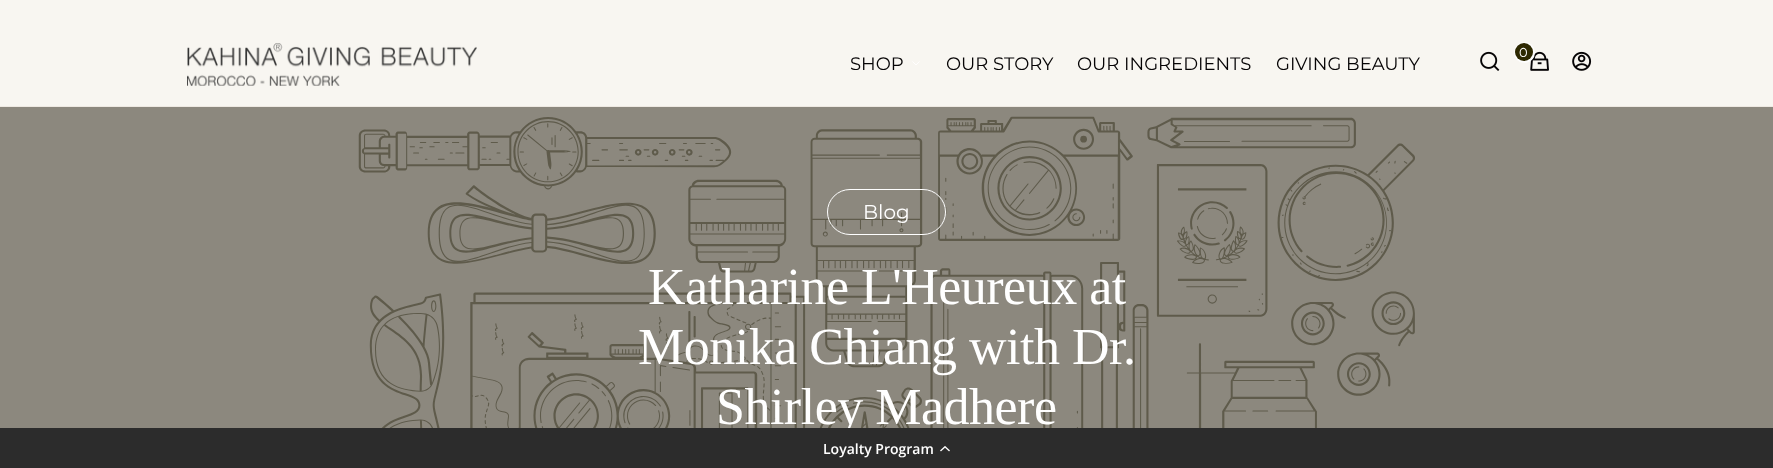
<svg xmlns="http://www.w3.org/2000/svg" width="1773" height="468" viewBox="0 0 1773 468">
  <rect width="100%" height="100%" fill="#f8f6f1"/>
  <path d="M0 106h1773v1H0z" fill="#eee9e2"/>
  <image x="187" y="43" width="290" height="43" href="img/1.png"/>
  <image x="1480" y="51" width="20" height="20" href="img/2.png"/>
  <image x="1530" y="51" width="19" height="20" href="img/3.png"/>
  <circle cx="1524.5" cy="52.5" r="9.5" fill="none" stroke="#fdfdfd" stroke-width="2"/>
  <circle cx="1524" cy="52" r="9" fill="#2d2800"/>
  <image x="1572" y="51" width="20" height="20" href="img/4.png"/>
  <path d="M912.5 61.5L916 65L919.5 61.5" fill="none" stroke="#fff" stroke-width="0.9"/>
  <path d="M0 107h1773v321H0z" fill="#8c887e"/>
  <image x="358" y="116" width="1057" height="312" href="img/5.png"/>
  <rect x="827.5" y="189.5" width="118" height="45" rx="22.5" fill="none" stroke="#fff"/>
  <text x="1519" y="57" font-family="Montserrat" font-size="13" fill="#fff">0</text>
  <g font-family="Montserrat" font-size="18" fill="#060405">
    <text x="850" y="70">SHOP</text>
    <text x="946" y="70">OUR STORY</text>
    <text x="1077" y="70">OUR INGREDIENTS</text>
    <text x="1276" y="70">GIVING BEAUTY</text>
  </g>
  <text x="863" y="219" font-family="Montserrat" font-size="20" fill="#fff">Blog</text>
  <g font-family="Liberation Serif" font-size="52" letter-spacing="-0.5" fill="#fff">
    <text x="648" y="304">Katharine L'Heureux at</text>
    <text x="638" y="364">Monika Chiang with Dr.</text>
    <text x="716" y="424">Shirley Madhere</text>
  </g>
  <path d="M0 428h1773v40H0z" fill="#2c2c2c"/>
  <text x="823" y="454" font-family="Open Sans" font-size="14" font-weight="600" fill="#fff">Loyalty Program</text>
  <image x="940" y="446" width="10" height="6" href="img/6.png"/>
</svg>
